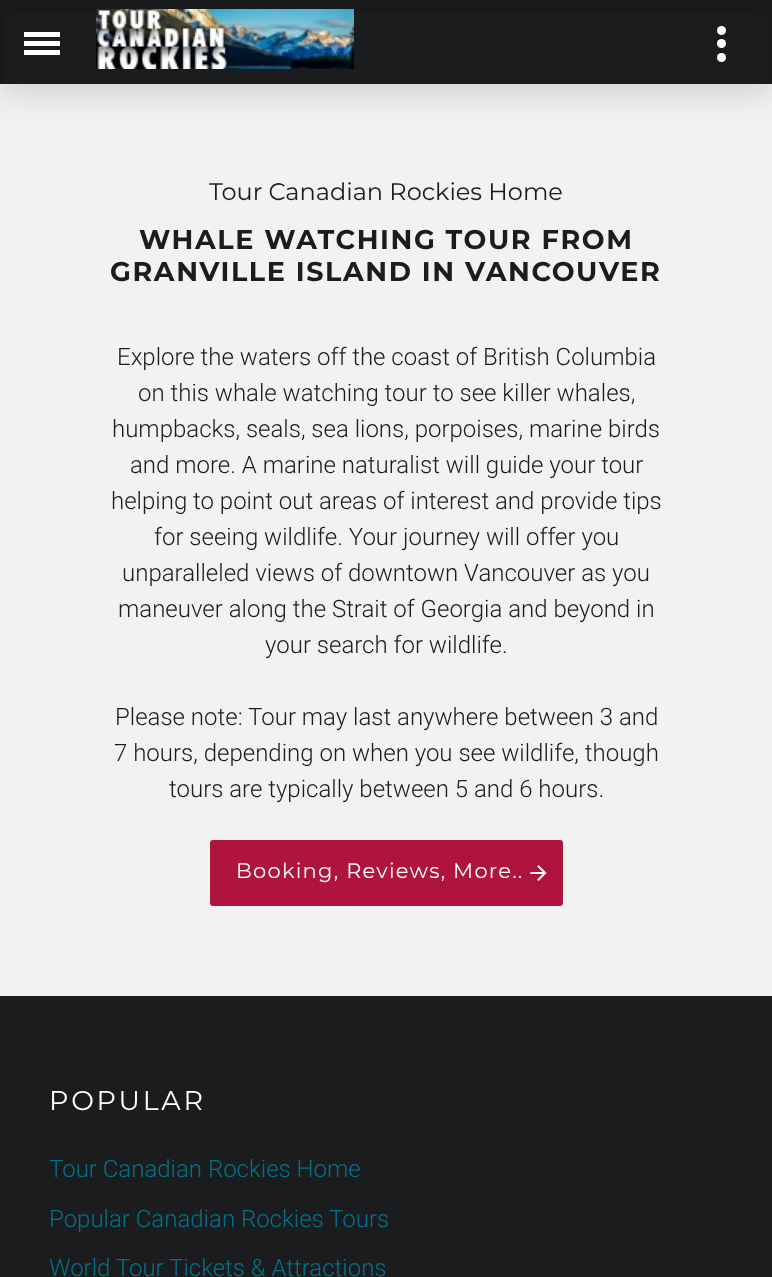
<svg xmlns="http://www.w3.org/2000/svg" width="772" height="1277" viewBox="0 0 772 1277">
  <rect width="100%" height="100%" fill="#1b1c1e"/>
  <path d="M0 84h772v912H0z" fill="#f2f2f2"/>
  <path d="M0 8h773v84H0z" fill="#00000026" filter="blur(17px)"/>
  <path d="M4 11h765v73H4z" fill="#1b1c1e"/>
  <image x="96" y="9" width="258" height="60" href="img/1.png"/>
  <path d="M24 41h36v5H24z" fill="#fff"/>
  <path d="M24 32h36v5H24z" fill="#fff"/>
  <path d="M24 50h36v5H24z" fill="#fff"/>
  <circle cx="721.5" cy="43.5" r="4.5" fill="#fff"/>
  <circle cx="721.5" cy="30.5" r="4.5" fill="#fff"/>
  <circle cx="721.5" cy="57.5" r="4.5" fill="#fff"/>
  <rect x="211" y="841" width="351" height="64" rx="2" fill="#af143e" stroke="#af143e" stroke-width="2"/>
  <image x="530" y="865" width="17" height="16" href="img/2.png"/>
  <text x="209" y="200" font-family="Montserrat" font-size="24" fill="#1b1c1e">Tour Canadian Rockies Home</text>
  <g font-family="Montserrat" font-size="27" font-weight="bold" letter-spacing="1.6" fill="#1b1c1e">
    <text x="139" y="249">WHALE WATCHING TOUR FROM</text>
    <text x="110" y="281">GRANVILLE ISLAND IN VANCOUVER</text>
  </g>
  <g font-family="Roboto" font-size="24" font-weight="300" fill="#1b1c1e">
    <text x="117" y="365">Explore the waters off the coast of British Columbia</text>
    <text x="138" y="401">on this whale watching tour to see killer whales,</text>
    <text x="112" y="437">humpbacks, seals, sea lions, porpoises, marine birds</text>
    <text x="130" y="473">and more. A marine naturalist will guide your tour</text>
    <text x="111" y="509">helping to point out areas of interest and provide tips</text>
    <text x="154" y="545">for seeing wildlife. Your journey will offer you</text>
    <text x="122" y="581">unparalleled views of downtown Vancouver as you</text>
    <text x="118" y="617">maneuver along the Strait of Georgia and beyond in</text>
    <text x="265" y="653">your search for wildlife.</text>
    <text x="115" y="725">Please note: Tour may last anywhere between 3 and</text>
    <text x="114" y="761">7 hours, depending on when you see wildlife, though</text>
    <text x="169" y="797">tours are typically between 5 and 6 hours.</text>
  </g>
  <text x="236" y="878" font-family="Montserrat" font-size="21" letter-spacing="1.25" fill="#fff">Booking, Reviews, More..</text>
  <text x="49" y="1110" font-family="Montserrat" font-size="27" letter-spacing="2.75" fill="#fff">POPULAR</text>
  <g font-family="Roboto" font-size="24" font-weight="300" fill="#04718b">
    <text x="49" y="1177">Tour Canadian Rockies Home</text>
    <text x="49" y="1227">Popular Canadian Rockies Tours</text>
    <text x="49" y="1276">World Tour Tickets &amp; Attractions</text>
  </g>
</svg>
